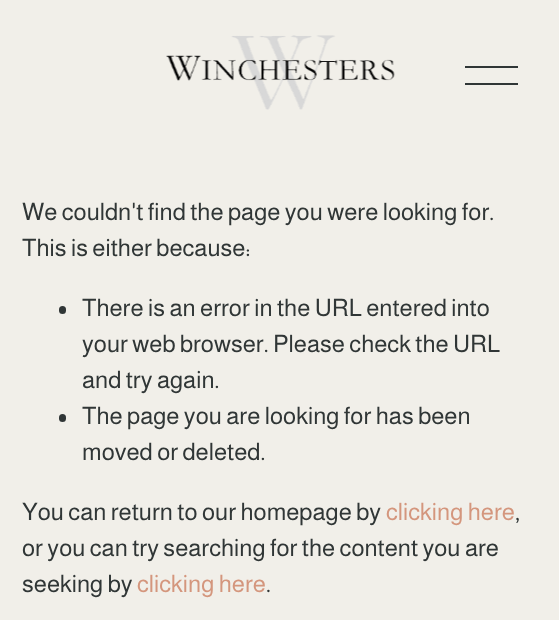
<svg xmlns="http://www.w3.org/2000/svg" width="559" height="620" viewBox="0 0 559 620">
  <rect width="100%" height="100%" fill="#f1efe9"/>
  <image x="166" y="35" width="229" height="75" href="img/1.png"/>
  <path d="M465 66h53v2H465z" fill="#303636"/>
  <path d="M465 83h53v2H465z" fill="#303636"/>
  <rect x="59" y="306" width="7" height="8" rx="3.5" fill="#303636"/>
  <rect x="59" y="414" width="7" height="8" rx="3.5" fill="#303636"/>
  <g font-family="Almarai" font-size="24" fill="#303636">
    <text x="22" y="220">We couldn't find the page you were looking for.</text>
    <text x="22" y="256">This is either because:</text>
    <text x="82" y="316">There is an error in the URL entered into</text>
    <text x="82" y="352">your web browser. Please check the URL</text>
    <text x="82" y="388">and try again.</text>
    <text x="82" y="424">The page you are looking for has been</text>
    <text x="82" y="460">moved or deleted.</text>
    <text x="22" y="520">You can return to our homepage by</text>
  </g>
  <text x="386" y="520" font-family="Almarai" font-size="24" fill="#d4967d">clicking here</text>
  <g font-family="Almarai" font-size="24" fill="#303636">
    <text x="515" y="520">,</text>
    <text x="22" y="556">or you can try searching for the content you are</text>
    <text x="22" y="592">seeking by</text>
  </g>
  <text x="137" y="592" font-family="Almarai" font-size="24" fill="#d4967d">clicking here</text>
  <text x="266" y="592" font-family="Almarai" font-size="24" fill="#303636">.</text>
</svg>
